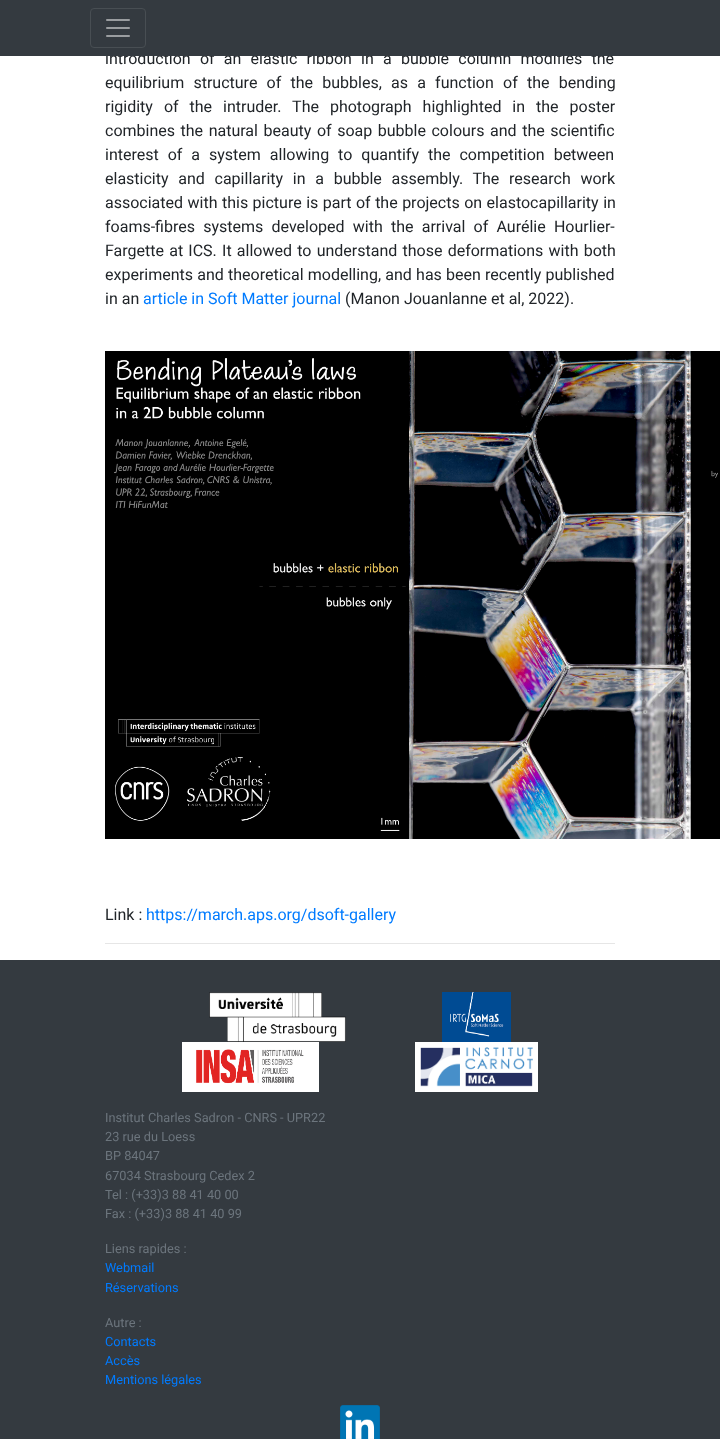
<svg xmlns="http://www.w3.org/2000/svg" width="720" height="1439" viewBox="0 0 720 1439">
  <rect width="100%" height="100%" fill="#fff"/>
  <image x="105" y="351" width="615" height="488" href="img/2.png"/>
  <path d="M105 943h510v1H105z" fill="#e6e6e6"/>
  <path d="M0 960h720v479H0z" fill="#343a40"/>
  <image x="209" y="992" width="137" height="50" href="img/3.png"/>
  <image x="442" y="992" width="69" height="50" href="img/4.png"/>
  <image x="182" y="1042" width="137" height="50" href="img/5.png"/>
  <image x="415" y="1042" width="123" height="50" href="img/6.png"/>
  <image x="340" y="1405" width="40" height="34" href="img/7.png"/>
  <text x="105" y="64" word-spacing="5.25" font-family="Roboto" font-size="16" fill="#212529">introduction of an elastic ribbon in a bubble column modifies the</text>
  <path d="M0 0h720v56H0z" fill="#343a40"/>
  <rect x="90.5" y="8.5" width="55" height="39" rx="3.5" fill="none" stroke="#484e53"/>
  <image x="106" y="19" width="24" height="18" href="img/1.png"/>
  <g font-family="Roboto" font-size="16" fill="#212529">
    <text x="105" y="88" word-spacing="5.25">equilibrium structure of the bubbles, as a function of the bending</text>
    <text x="105" y="112" word-spacing="7">rigidity of the intruder. The photograph highlighted in the poster</text>
    <text x="105" y="136" word-spacing="1.6">combines the natural beauty of soap bubble colours and the scientific</text>
    <text x="105" y="160" word-spacing="5">interest of a system allowing to quantify the competition between</text>
    <text x="105" y="184" word-spacing="5.75">elasticity and capillarity in a bubble assembly. The research work</text>
    <text x="105" y="208" word-spacing="0.5">associated with this picture is part of the projects on elastocapillarity in</text>
    <text x="105" y="232" word-spacing="4.25">foams-fibres systems developed with the arrival of Aurélie Hourlier-</text>
    <text x="105" y="256" word-spacing="1.25">Fargette at ICS. It allowed to understand those deformations with both</text>
    <text x="105" y="280" word-spacing="0.25">experiments and theoretical modelling, and has been recently published</text>
    <text x="105" y="304">in an</text>
  </g>
  <text x="143" y="304" font-family="Roboto" font-size="16" fill="#007bff">article in Soft Matter journal</text>
  <g font-family="Roboto" font-size="16" fill="#212529">
    <text x="345" y="304">(Manon Jouanlanne et al, 2022).</text>
    <text x="105" y="920">Link :</text>
  </g>
  <text x="146" y="920" font-family="Roboto" font-size="16" fill="#007bff">https://march.aps.org/dsoft-gallery</text>
  <g font-family="Roboto" font-size="12.75" fill="#6c757d">
    <text x="105" y="1122">Institut Charles Sadron - CNRS - UPR22</text>
    <text x="105" y="1141">23 rue du Loess</text>
    <text x="105" y="1160">BP 84047</text>
    <text x="105" y="1180">67034 Strasbourg Cedex 2</text>
    <text x="105" y="1199">Tel : (+33)3 88 41 40 00</text>
    <text x="105" y="1218">Fax : (+33)3 88 41 40 99</text>
    <text x="105" y="1253">Liens rapides :</text>
  </g>
  <g font-family="Roboto" font-size="12.75" fill="#007bff">
    <text x="105" y="1272">Webmail</text>
    <text x="105" y="1292">Réservations</text>
  </g>
  <text x="105" y="1327" font-family="Roboto" font-size="12.75" fill="#6c757d">Autre :</text>
  <g font-family="Roboto" font-size="12.75" fill="#007bff">
    <text x="105" y="1346">Contacts</text>
    <text x="105" y="1365">Accès</text>
    <text x="105" y="1384">Mentions légales</text>
  </g>
</svg>
